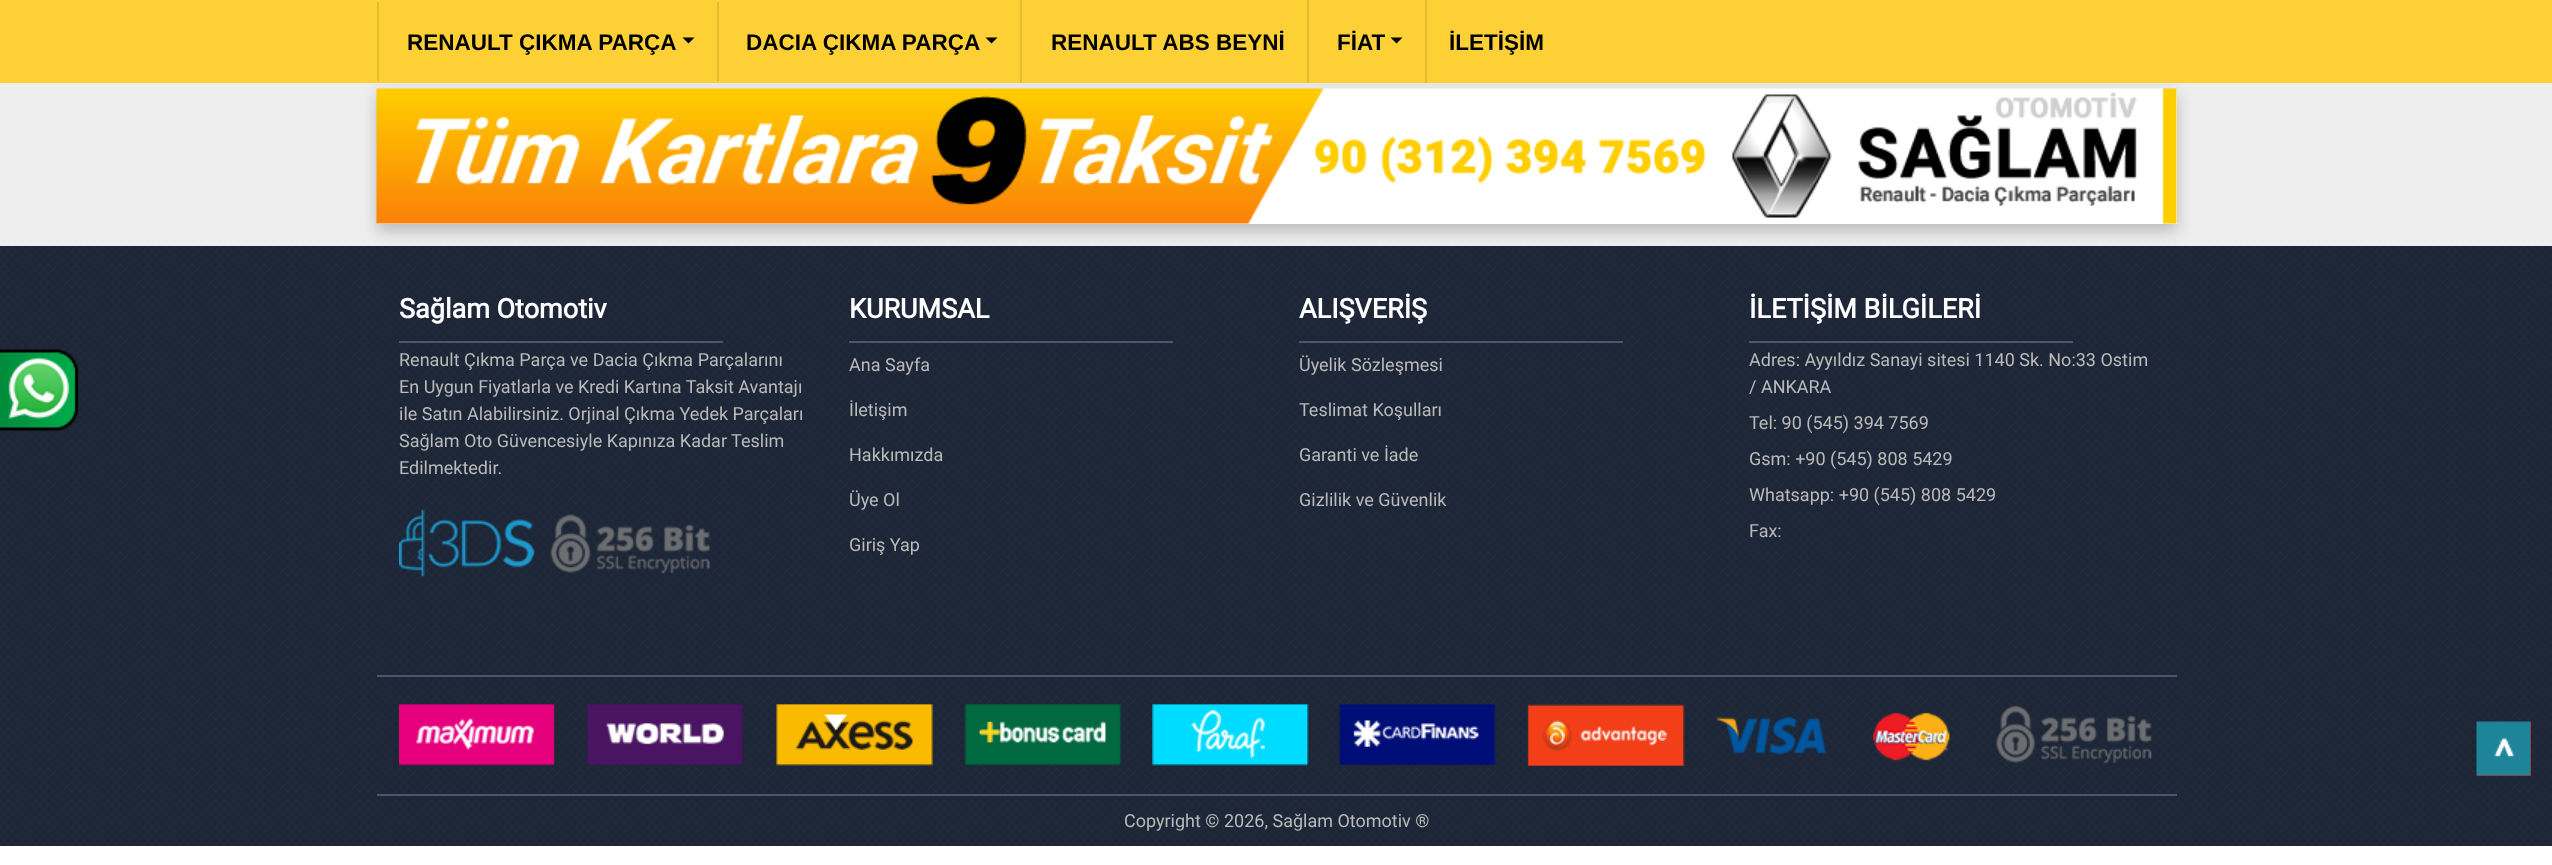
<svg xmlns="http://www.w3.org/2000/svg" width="2552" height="865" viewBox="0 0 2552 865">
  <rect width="100%" height="100%" fill="#eee"/>
  <path d="M377 -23h1800v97H377z" fill="#bababa" filter="blur(7.5px)"/>
  <path d="M377 96h1800v135H377z" fill="#bababa" filter="blur(7.5px)"/>
  <path d="M0 0h2552v83H0z" fill="#fdd135"/>
  <path d="M717 2h2v79H717z" fill="#e4bc30"/>
  <path d="M377 2h2v79H377z" fill="#e4bc30"/>
  <path d="M682.5 37.5H694.5L688.5 43.5Z" fill="#000"/>
  <path d="M1020 0h2v83H1020z" fill="#e4bc30"/>
  <path d="M985.5 37.5H997.5L991.5 43.5Z" fill="#000"/>
  <path d="M1307 0h2v83H1307z" fill="#e4bc30"/>
  <path d="M1425 0h2v83H1425z" fill="#e4bc30"/>
  <path d="M1390.5 37.5H1402.5L1396.5 43.5Z" fill="#000"/>
  <path d="M377 89h1800v135H377z" fill="#fff"/>
  <image x="376" y="88" width="1801" height="136" href="img/1.png"/>
  <image x="0" y="246" width="2552" height="600" href="img/3.png"/>
  <image x="0" y="349" width="79" height="82" href="img/2.png"/>
  <path d="M399 341h324v2H399z" fill="#485873"/>
  <image x="399" y="509" width="311" height="68" href="img/4.png"/>
  <path d="M849 341h324v2H849z" fill="#485873"/>
  <path d="M1299 341h324v2H1299z" fill="#485873"/>
  <path d="M1749 341h324v2H1749z" fill="#485873"/>
  <path d="M377 675h1800v2H377z" fill="#485873"/>
  <path d="M377 794h1800v2H377z" fill="#485873"/>
  <image x="399" y="704" width="1753" height="62" href="img/5.png"/>
  <path d="M0 846h2552v19H0z" fill="#fff"/>
  <path d="M2477 722h54v54H2477z" fill="#f00"/>
  <image x="2476" y="721" width="55" height="55" href="img/6.png"/>
  <g font-family="Liberation Sans" font-size="22.5" font-weight="bold" fill="#000">
    <text x="407" y="50">RENAULT ÇIKMA PARÇA</text>
    <text x="746" y="50">DACIA ÇIKMA PARÇA</text>
    <text x="1051" y="50">RENAULT ABS BEYNİ</text>
    <text x="1337" y="50">FİAT</text>
    <text x="1449" y="50">İLETİŞİM</text>
  </g>
  <text x="399" y="318" font-family="Roboto" font-size="27" font-weight="bold" fill="#fff">Sağlam Otomotiv</text>
  <g font-family="Roboto" font-size="18" fill="#bababa">
    <text x="399" y="366">Renault Çıkma Parça ve Dacia Çıkma Parçalarını</text>
    <text x="399" y="393">En Uygun Fiyatlarla ve Kredi Kartına Taksit Avantajı</text>
    <text x="399" y="420">ile Satın Alabilirsiniz. Orjinal Çıkma Yedek Parçaları</text>
    <text x="399" y="447">Sağlam Oto Güvencesiyle Kapınıza Kadar Teslim</text>
    <text x="399" y="474">Edilmektedir.</text>
  </g>
  <text x="849" y="318" font-family="Roboto" font-size="27" font-weight="bold" fill="#fff">KURUMSAL</text>
  <g font-family="Roboto" font-size="18" fill="#bababa">
    <text x="849" y="371">Ana Sayfa</text>
    <text x="849" y="416">İletişim</text>
    <text x="849" y="461">Hakkımızda</text>
    <text x="849" y="506">Üye Ol</text>
    <text x="849" y="551">Giriş Yap</text>
  </g>
  <text x="1299" y="318" font-family="Roboto" font-size="27" font-weight="bold" fill="#fff">ALIŞVERİŞ</text>
  <g font-family="Roboto" font-size="18" fill="#bababa">
    <text x="1299" y="371">Üyelik Sözleşmesi</text>
    <text x="1299" y="416">Teslimat Koşulları</text>
    <text x="1299" y="461">Garanti ve İade</text>
    <text x="1299" y="506">Gizlilik ve Güvenlik</text>
  </g>
  <text x="1749" y="318" font-family="Roboto" font-size="27" font-weight="bold" fill="#fff">İLETİŞİM BİLGİLERİ</text>
  <g font-family="Roboto" font-size="18" fill="#bababa">
    <text x="1749" y="366">Adres: Ayyıldız Sanayi sitesi 1140 Sk. No:33 Ostim</text>
    <text x="1749" y="393">/ ANKARA</text>
    <text x="1749" y="429">Tel: 90 (545) 394 7569</text>
    <text x="1749" y="465">Gsm: +90 (545) 808 5429</text>
    <text x="1749" y="501">Whatsapp: +90 (545) 808 5429</text>
    <text x="1749" y="537">Fax:</text>
    <text x="1124" y="827">Copyright © 2026, Sağlam Otomotiv ®</text>
  </g>
</svg>
